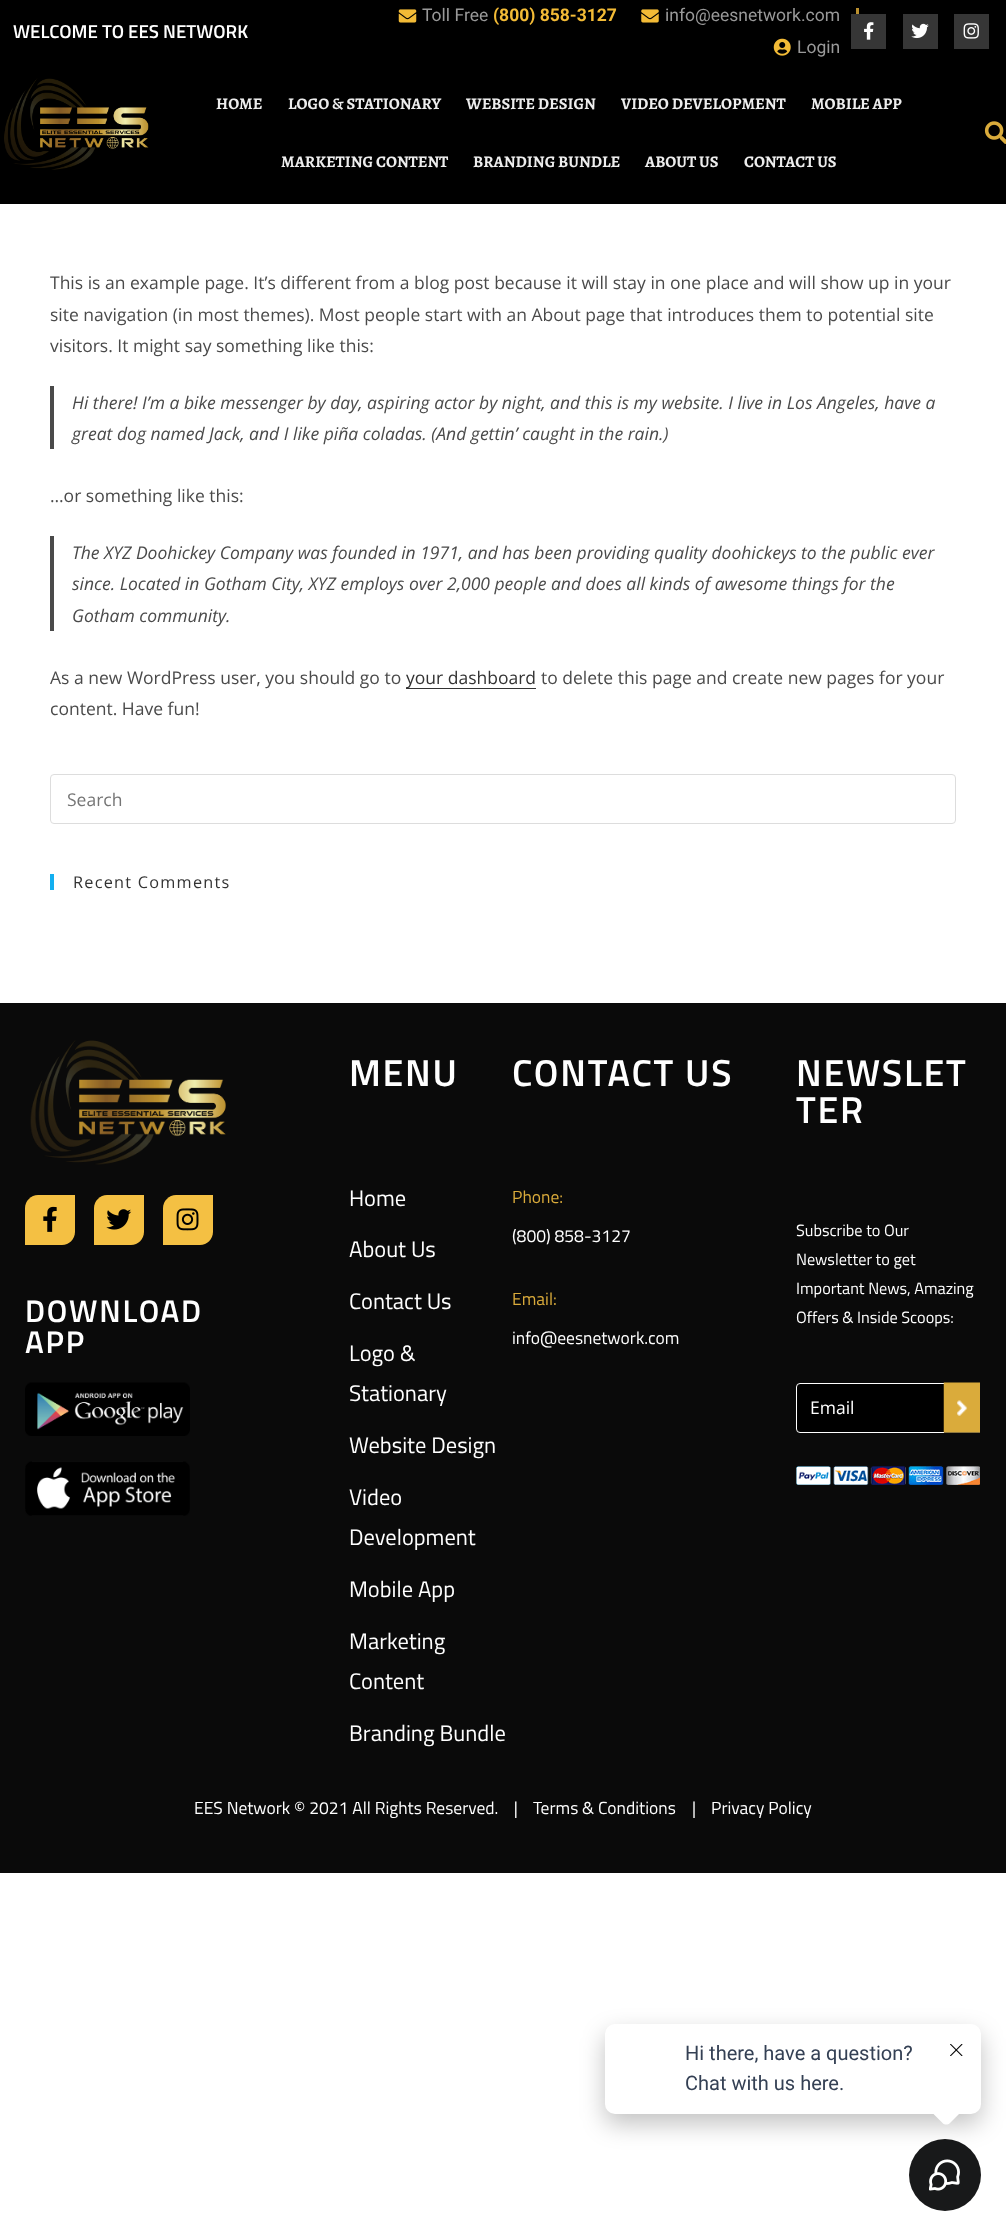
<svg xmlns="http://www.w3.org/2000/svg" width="1006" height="2236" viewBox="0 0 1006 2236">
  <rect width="100%" height="100%" fill="#fff"/>
  <path d="M0 0h1006v204H0z" fill="#000"/>
  <image x="398" y="9" width="19" height="14" href="img/1.png"/>
  <image x="641" y="9" width="18" height="14" href="img/2.png"/>
  <image x="773" y="38" width="18" height="18" href="img/3.png"/>
  <path d="M856 8h3v6H856z" fill="#bb902f"/>
  <path d="M851 14h35v35H851z" fill="#363636"/>
  <image x="864" y="22" width="10" height="18" href="img/4.png"/>
  <path d="M903 14h35v35H903z" fill="#363636"/>
  <image x="911" y="23" width="18" height="16" href="img/5.png"/>
  <path d="M954 14h35v35H954z" fill="#363636"/>
  <image x="963" y="23" width="16" height="16" href="img/6.png"/>
  <image x="4" y="78" width="145" height="92" href="img/7.png"/>
  <image x="984" y="121" width="22" height="23" href="img/8.png"/>
  <path d="M50 386h4v63H50z" fill="#4a4a4a"/>
  <path d="M50 536h4v95H50z" fill="#4a4a4a"/>
  <path d="M406 688h130v1H406z" fill="#333"/>
  <rect x="50.5" y="774.5" width="905" height="49" rx="3.5" fill="none" stroke="#ddd"/>
  <path d="M50 874h4v16H50z" fill="#13aff0"/>
  <path d="M0 1003h1006v870H0z" fill="#0a0a0a"/>
  <image x="30" y="1040" width="196" height="125" href="img/9.png"/>
  <path d="M38 1195H75V1232C75 1239 69 1245 62 1245H25V1208C25 1201 31 1195 38 1195Z" fill="#f4c043"/>
  <image x="43" y="1206" width="14" height="26" href="img/10.png"/>
  <path d="M107 1195H144V1232C144 1239 138 1245 131 1245H94V1208C94 1201 100 1195 107 1195Z" fill="#f4c043"/>
  <image x="106" y="1209" width="26" height="21" href="img/11.png"/>
  <path d="M176 1195H213V1232C213 1239 207 1245 200 1245H163V1208C163 1201 169 1195 176 1195Z" fill="#f4c043"/>
  <image x="176" y="1208" width="23" height="23" href="img/12.png"/>
  <image x="25" y="1382" width="165" height="54" href="img/13.png"/>
  <image x="25" y="1461" width="165" height="55" href="img/14.png"/>
  <rect x="796.5" y="1383.5" width="183" height="49" rx="3.5" fill="#000" stroke="#fff"/>
  <path d="M944 1432h36v1H944z" fill="#444"/>
  <image x="943" y="1382" width="37" height="51" href="img/15.png"/>
  <image x="796" y="1466" width="184" height="19" href="img/16.png"/>
  <circle cx="945" cy="2175" r="36" fill="#18191a"/>
  <image x="929" y="2159" width="31" height="32" href="img/18.png"/>
  <rect x="605" y="2034" width="376" height="90" rx="10" fill="#0000003d" filter="blur(12.5px)"/>
  <rect x="605" y="2024" width="376" height="90" rx="10" fill="#fff"/>
  <path d="M950 2094.5L960.5 2105C962.5 2107 962.5 2110.5 960.5 2112.5L950 2123C948 2125 944.5 2125 942.5 2123L932 2112.5C930 2110.5 930 2107 932 2105L942.5 2094.5C944.5 2092.5 948 2092.5 950 2094.5Z" fill="#fff"/>
  <image x="950" y="2044" width="13" height="12" href="img/17.png"/>
  <text x="13" y="38" font-family="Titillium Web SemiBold" font-size="18.75" font-weight="600" fill="#fff">WELCOME TO EES NETWORK</text>
  <text x="422" y="21" font-family="Roboto" font-size="17.5" fill="#999">Toll Free</text>
  <text x="493" y="21" font-family="Roboto" font-size="17.5" font-weight="bold" fill="#f3bb36">(800) 858-3127</text>
  <g font-family="Roboto" font-size="17.5" fill="#999">
    <text x="665" y="21">info@eesnetwork.com</text>
    <text x="797" y="53">Login</text>
  </g>
  <g font-family="Alegreya" font-size="16.25" font-weight="bold" fill="#ededed">
    <text x="216" y="109">HOME</text>
    <text x="288" y="109">LOGO &amp; STATIONARY</text>
    <text x="466" y="109">WEBSITE DESIGN</text>
    <text x="621" y="109">VIDEO DEVELOPMENT</text>
    <text x="811" y="109">MOBILE APP</text>
    <text x="281" y="167">MARKETING CONTENT</text>
    <text x="473" y="167">BRANDING BUNDLE</text>
    <text x="645" y="167">ABOUT US</text>
    <text x="744" y="167">CONTACT US</text>
  </g>
  <g font-family="Open Sans" font-size="17.5" fill="#4a4a4a">
    <text x="50" y="289">This is an example page. It’s different from a blog post because it will stay in one place and will show up in your</text>
    <text x="50" y="321">site navigation (in most themes). Most people start with an About page that introduces them to potential site</text>
    <text x="50" y="352">visitors. It might say something like this:</text>
  </g>
  <g font-family="Open Sans" font-size="17.5" font-style="italic" fill="#4a4a4a">
    <text x="72" y="409">Hi there! I’m a bike messenger by day, aspiring actor by night, and this is my website. I live in Los Angeles, have a</text>
    <text x="72" y="440">great dog named Jack, and I like piña coladas. (And gettin’ caught in the rain.)</text>
  </g>
  <text x="50" y="502" font-family="Open Sans" font-size="17.5" fill="#4a4a4a">…or something like this:</text>
  <g font-family="Open Sans" font-size="17.5" font-style="italic" fill="#4a4a4a">
    <text x="72" y="559">The XYZ Doohickey Company was founded in 1971, and has been providing quality doohickeys to the public ever</text>
    <text x="72" y="590">since. Located in Gotham City, XYZ employs over 2,000 people and does all kinds of awesome things for the</text>
    <text x="72" y="622">Gotham community.</text>
  </g>
  <text x="50" y="684" font-family="Open Sans" font-size="17.5" fill="#4a4a4a">As a new WordPress user, you should go to</text>
  <text x="406" y="684" font-family="Open Sans" font-size="17.5" fill="#333">your dashboard</text>
  <g font-family="Open Sans" font-size="17.5" fill="#4a4a4a">
    <text x="541" y="684">to delete this page and create new pages for your</text>
    <text x="50" y="715">content. Have fun!</text>
  </g>
  <text x="67" y="806" font-family="Open Sans" font-size="17.5" fill="#757575">Search</text>
  <text x="73" y="888" font-family="Open Sans" font-size="16.25" letter-spacing="1.25" fill="#333">Recent Comments</text>
  <g font-family="Titillium Web SemiBold" font-size="31.25" font-weight="600" letter-spacing="1.75" fill="#fff">
    <text x="25" y="1322">DOWNLOAD</text>
    <text x="25" y="1353">APP</text>
  </g>
  <text x="349" y="1086" font-family="Titillium Web SemiBold" font-size="37.5" font-weight="600" letter-spacing="1.75" fill="#fff">MENU</text>
  <g font-family="Titillium Web" font-size="22.5" fill="#fff">
    <text x="349" y="1206">Home</text>
    <text x="349" y="1257">About Us</text>
    <text x="349" y="1309">Contact Us</text>
    <text x="349" y="1361">Logo &amp;</text>
    <text x="349" y="1401">Stationary</text>
    <text x="349" y="1453">Website Design</text>
    <text x="349" y="1505">Video</text>
    <text x="349" y="1545">Development</text>
    <text x="349" y="1597">Mobile App</text>
    <text x="349" y="1649">Marketing</text>
    <text x="349" y="1689">Content</text>
    <text x="349" y="1741">Branding Bundle</text>
  </g>
  <text x="512" y="1086" font-family="Titillium Web SemiBold" font-size="37.5" font-weight="600" letter-spacing="1.75" fill="#fff">CONTACT US</text>
  <text x="512" y="1203" font-family="Titillium Web" font-size="17.5" fill="#daab3b">Phone:</text>
  <text x="512" y="1242" font-family="Titillium Web" font-size="17.5" fill="#fff">(800) 858-3127</text>
  <text x="512" y="1305" font-family="Titillium Web" font-size="17.5" fill="#daab3b">Email:</text>
  <text x="512" y="1344" font-family="Titillium Web" font-size="17.5" fill="#fff">info@eesnetwork.com</text>
  <g font-family="Titillium Web SemiBold" font-size="37.5" font-weight="600" letter-spacing="1.75" fill="#fff">
    <text x="796" y="1086">NEWSLET</text>
    <text x="796" y="1123">TER</text>
  </g>
  <g font-family="Titillium Web" font-size="16.25" fill="#fff">
    <text x="796" y="1236">Subscribe to Our</text>
    <text x="796" y="1265">Newsletter to get</text>
    <text x="796" y="1294">Important News, Amazing</text>
    <text x="796" y="1323">Offers &amp; Inside Scoops:</text>
  </g>
  <text x="810" y="1414" font-family="Open Sans" font-size="17.5" fill="#fff">Email</text>
  <g font-family="Titillium Web" font-size="17.5" fill="#fff">
    <text x="194" y="1814" xml:space="preserve">EES Network © 2021 All Rights Reserved.    |</text>
    <text x="533" y="1814">Terms &amp; Conditions</text>
    <text x="692" y="1814">|</text>
    <text x="711" y="1814">Privacy Policy</text>
  </g>
  <g font-family="Roboto" font-size="20" fill="#344054">
    <text x="685" y="2060">Hi there, have a question?</text>
    <text x="685" y="2090">Chat with us here.</text>
  </g>
</svg>
